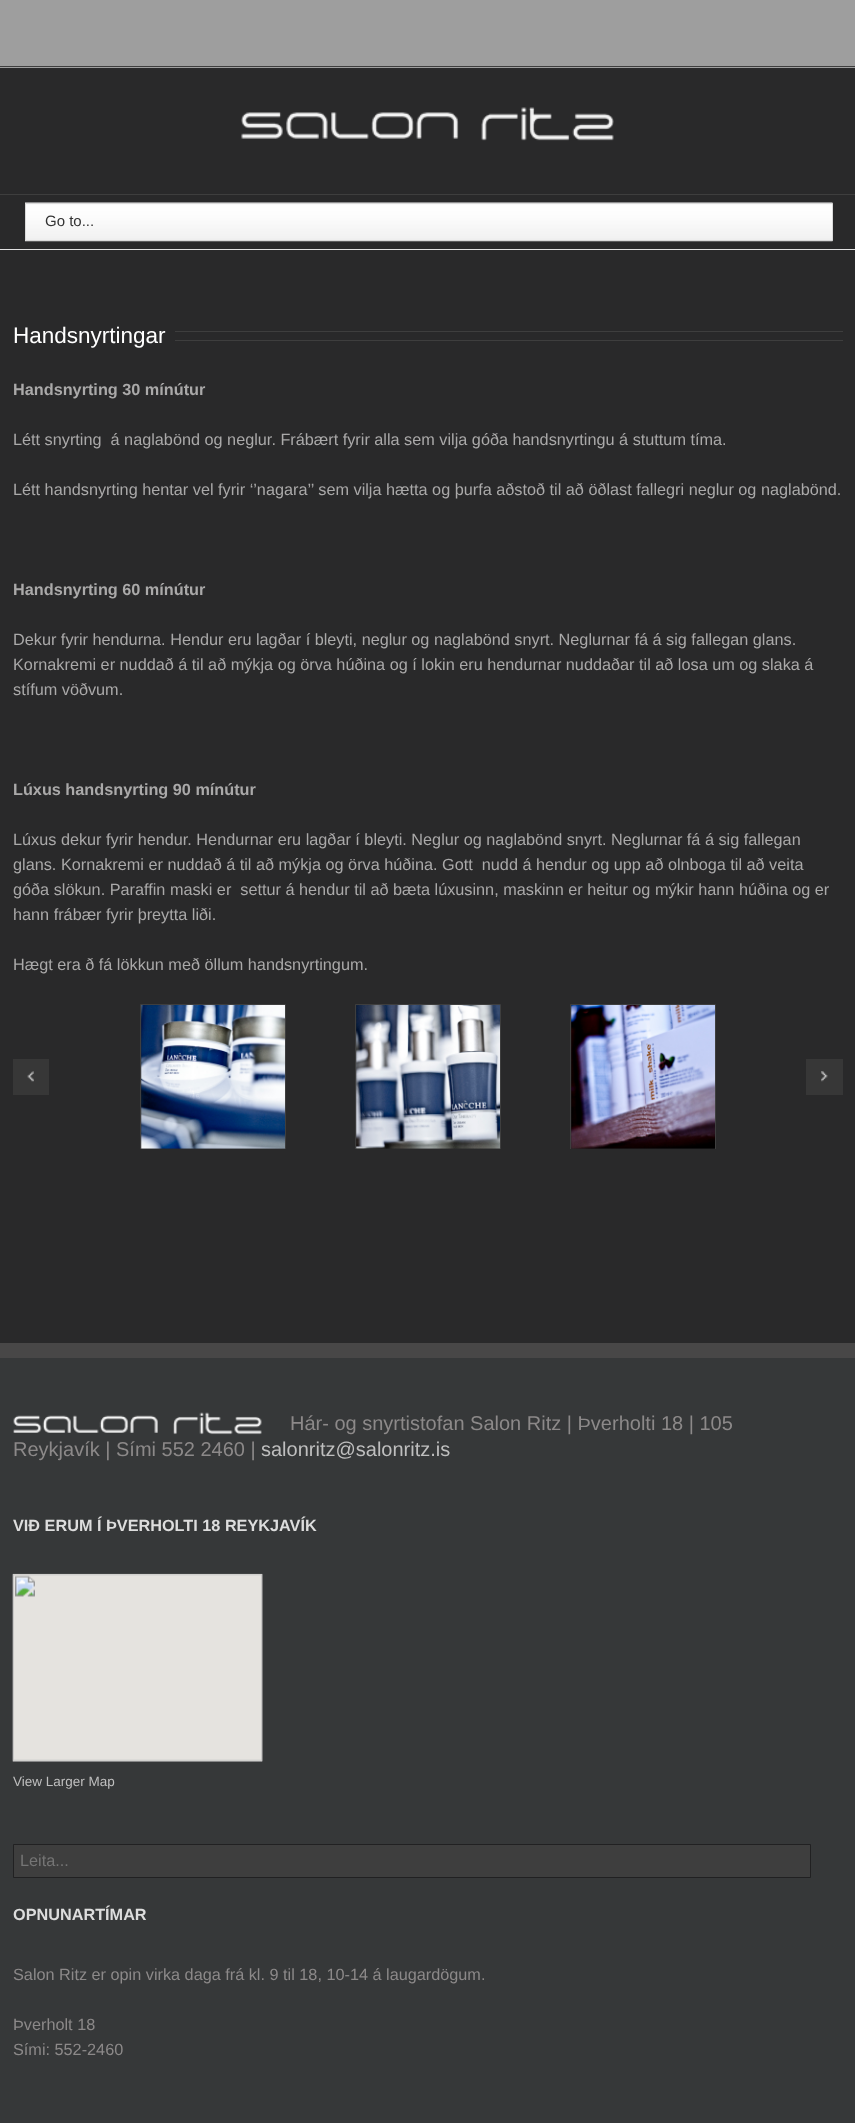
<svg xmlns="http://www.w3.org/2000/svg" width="855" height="2123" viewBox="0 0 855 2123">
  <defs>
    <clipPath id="clip1"><path d="M29 1003h814v146H29z"/></clipPath>
  </defs>
  <rect width="100%" height="100%" fill="#29292a"/>
  <path d="M0 0h855v68H0z" fill="#9e9e9e"/>
  <path d="M0 66h855v1H0z" fill="#3e3e3e"/>
  <path d="M0 194h855v1H0z" fill="#3e3e3e"/>
  <image x="241" y="107" width="373" height="34" href="img/1.png"/>
  <path d="M0 249h855v1H0z" fill="#e1e1e1"/>
  <image x="25" y="202" width="808" height="40" href="img/2.png"/>
  <path d="M25.5 203.5h807v37H25.5z" fill="none" stroke="#dadada"/>
  <path d="M175 331h668v1H175z" fill="#3e3e3e"/>
  <path d="M175 340h668v1H175z" fill="#3e3e3e"/>
  <g clip-path="url(#clip1)">
    <path d="M140.5 1004.5h145v145H140.5z" fill="none" stroke="#3e3e3e"/>
  </g>
  <image x="141" y="1005" width="144" height="144" href="img/3.png"/>
  <g clip-path="url(#clip1)">
    <path d="M355.5 1004.5h145v145H355.5z" fill="none" stroke="#3e3e3e"/>
  </g>
  <image x="356" y="1005" width="144" height="144" href="img/4.png"/>
  <g clip-path="url(#clip1)">
    <path d="M570.5 1004.5h145v145H570.5z" fill="none" stroke="#3e3e3e"/>
  </g>
  <image x="571" y="1005" width="144" height="144" href="img/5.png"/>
  <path d="M13 1059h36v36H13z" fill="#373737"/>
  <image x="27" y="1071" width="7" height="11" href="img/6.png"/>
  <path d="M806 1059h37v36H806z" fill="#373737"/>
  <image x="821" y="1071" width="7" height="11" href="img/7.png"/>
  <path d="M0 1358h855v765H0z" fill="#363839"/>
  <path d="M0 1343h855v15H0z" fill="#484747"/>
  <image x="13" y="1412" width="249" height="23" href="img/8.png"/>
  <image x="12" y="1573" width="251" height="189" href="img/9.png"/>
  <path d="M13.5 1844.5h797v33H13.5z" fill="#3e3e3e" stroke="#212122"/>
  <text x="45" y="226" font-family="Liberation Sans" font-size="15" fill="#333">Go to...</text>
  <text x="13" y="343" font-family="Liberation Sans" font-size="22.5" fill="#fff">Handsnyrtingar</text>
  <text x="13" y="395" font-family="Liberation Sans" font-size="16.25" font-weight="bold" fill="#aaa9a9">Handsnyrting 30 mínútur</text>
  <g font-family="Liberation Sans" font-size="16.25" fill="#aaa9a9">
    <text x="13" y="445" xml:space="preserve">Létt snyrting  á naglabönd og neglur. Frábært fyrir alla sem vilja góða handsnyrtingu á stuttum tíma.</text>
    <text x="13" y="495">Létt handsnyrting hentar vel fyrir ‘’nagara’’ sem vilja hætta og þurfa aðstoð til að öðlast fallegri neglur og naglabönd.</text>
  </g>
  <text x="13" y="595" font-family="Liberation Sans" font-size="16.25" font-weight="bold" fill="#aaa9a9">Handsnyrting 60 mínútur</text>
  <g font-family="Liberation Sans" font-size="16.25" fill="#aaa9a9">
    <text x="13" y="645">Dekur fyrir hendurna. Hendur eru lagðar í bleyti, neglur og naglabönd snyrt. Neglurnar fá á sig fallegan glans.</text>
    <text x="13" y="670">Kornakremi er nuddað á til að mýkja og örva húðina og í lokin eru hendurnar nuddaðar til að losa um og slaka á</text>
    <text x="13" y="695">stífum vöðvum.</text>
  </g>
  <text x="13" y="795" font-family="Liberation Sans" font-size="16.25" font-weight="bold" fill="#aaa9a9">Lúxus handsnyrting 90 mínútur</text>
  <g font-family="Liberation Sans" font-size="16.25" fill="#aaa9a9">
    <text x="13" y="845">Lúxus dekur fyrir hendur. Hendurnar eru lagðar í bleyti. Neglur og naglabönd snyrt. Neglurnar fá á sig fallegan</text>
    <text x="13" y="870" xml:space="preserve">glans. Kornakremi er nuddað á til að mýkja og örva húðina. Gott  nudd á hendur og upp að olnboga til að veita</text>
    <text x="13" y="895" xml:space="preserve">góða slökun. Paraffin maski er  settur á hendur til að bæta lúxusinn, maskinn er heitur og mýkir hann húðina og er</text>
    <text x="13" y="920">hann frábær fyrir þreytta liði.</text>
    <text x="13" y="970">Hægt era ð fá lökkun með öllum handsnyrtingum.</text>
  </g>
  <g font-family="Liberation Sans" font-size="20" fill="#8c8989">
    <text x="290" y="1430">Hár- og snyrtistofan Salon Ritz | Þverholti 18 | 105</text>
    <text x="13" y="1456">Reykjavík | Sími 552 2460 |</text>
  </g>
  <text x="261" y="1456" font-family="Liberation Sans" font-size="20" fill="#bfbfbf">salonritz@salonritz.is</text>
  <text x="13" y="1531" font-family="Liberation Sans" font-size="16.25" font-weight="bold" fill="#ddd">VIÐ ERUM Í ÞVERHOLTI 18 REYKJAVÍK</text>
  <text x="13" y="1786" font-family="Liberation Sans" font-size="13.5" fill="#bfbfbf">View Larger Map</text>
  <text x="20" y="1866" font-family="Liberation Sans" font-size="16.25" fill="#757575">Leita...</text>
  <text x="13" y="1920" font-family="Liberation Sans" font-size="16.25" font-weight="bold" fill="#ddd">OPNUNARTÍMAR</text>
  <g font-family="Liberation Sans" font-size="16.25" fill="#8c8989">
    <text x="13" y="1980">Salon Ritz er opin virka daga frá kl. 9 til 18, 10-14 á laugardögum.</text>
    <text x="13" y="2030">Þverholt 18</text>
    <text x="13" y="2055">Sími: 552-2460</text>
  </g>
</svg>
